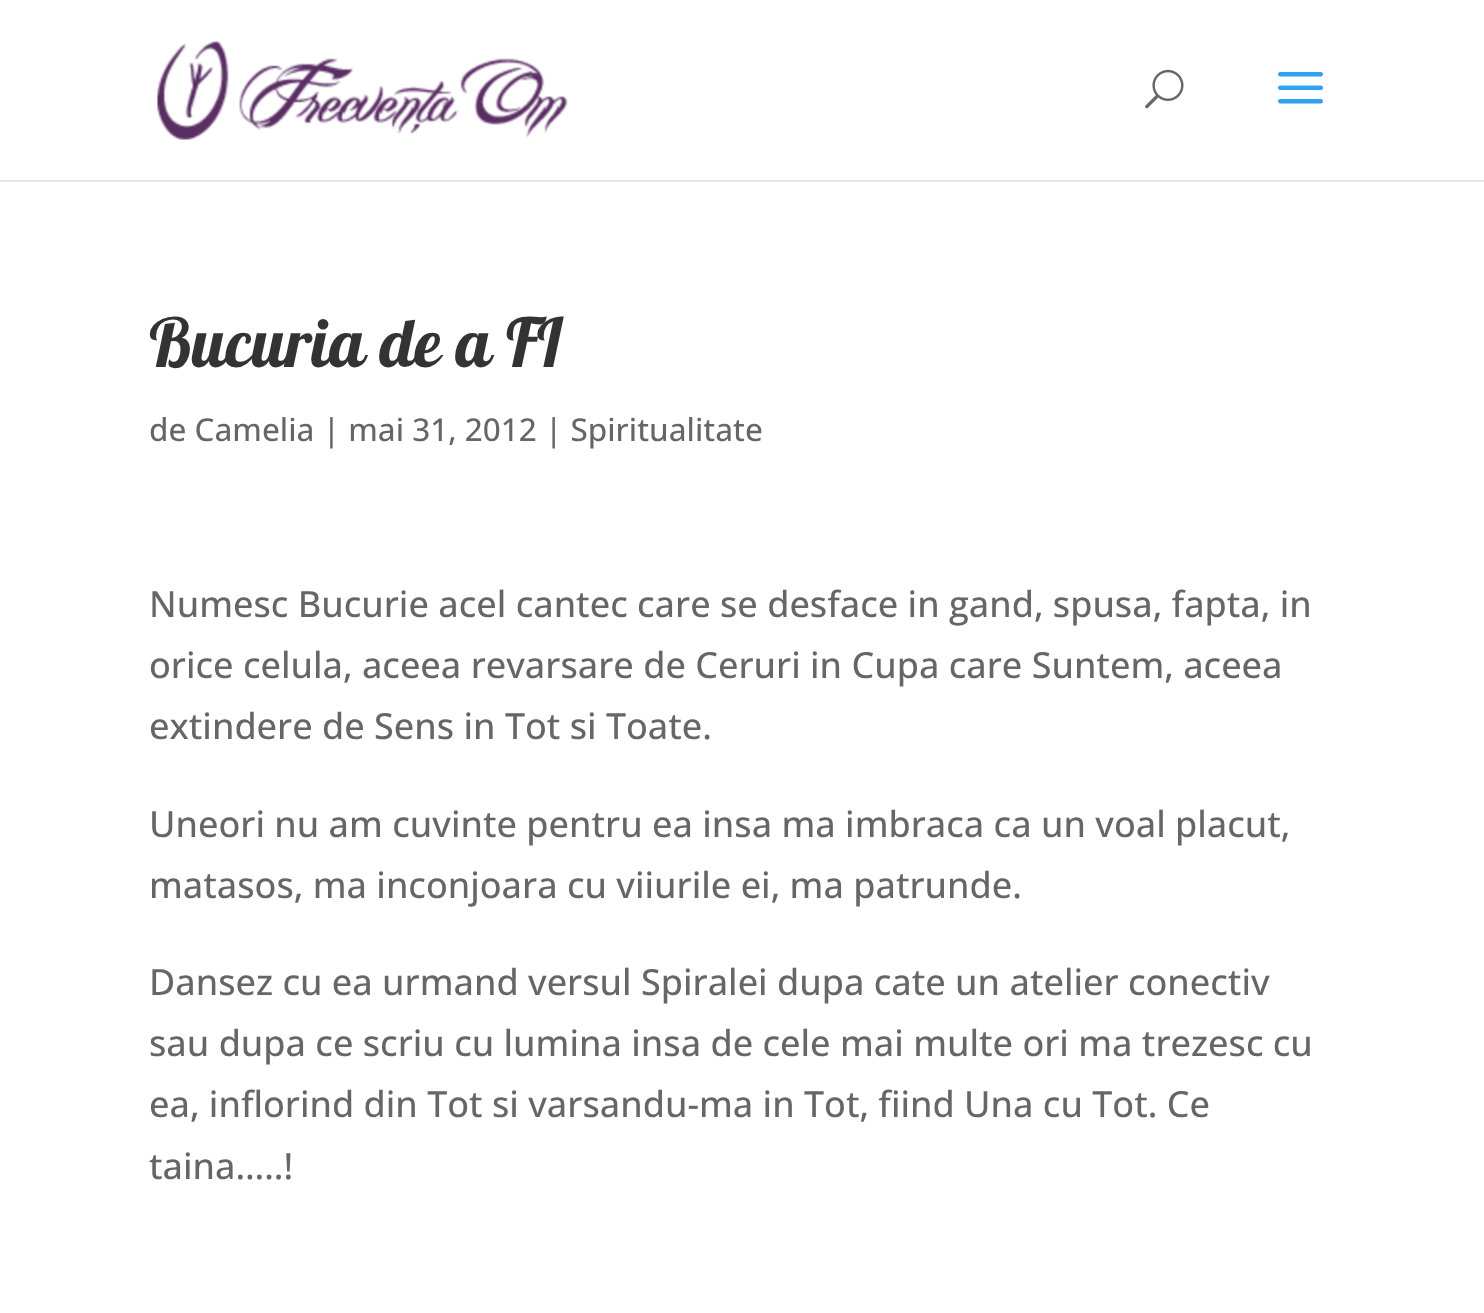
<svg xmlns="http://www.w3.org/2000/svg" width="1484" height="1313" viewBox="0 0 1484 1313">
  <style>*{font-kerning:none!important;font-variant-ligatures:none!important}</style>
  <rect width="100%" height="100%" fill="#fff"/>
  <path d="M0 180h1484v2H0z" fill="#e6e6e6"/>
  <image x="157" y="40" width="411" height="100" href="img/1.png"/>
  <image x="1145" y="69" width="39" height="40" href="img/2.png"/>
  <image x="1278" y="72" width="45" height="32" href="img/3.png"/>
  <text x="149" y="367" font-family="Lobster" font-size="67.5" fill="#333">Bucuria de a FI</text>
  <text x="149" y="441" font-family="Open Sans" font-size="31.5" font-weight="500" fill="#666">de Camelia | mai 31, 2012 | Spiritualitate</text>
  <g font-family="Open Sans" font-size="36" font-weight="500" fill="#666">
    <text x="149" y="617">Numesc Bucurie acel cantec care se desface in gand, spusa, fapta, in</text>
    <text x="149" y="678">orice celula, aceea revarsare de Ceruri in Cupa care Suntem, aceea</text>
    <text x="149" y="739">extindere de Sens in Tot si Toate.</text>
    <text x="149" y="837">Uneori nu am cuvinte pentru ea insa ma imbraca ca un voal placut,</text>
    <text x="149" y="898">matasos, ma inconjoara cu viiurile ei, ma patrunde.</text>
    <text x="149" y="995">Dansez cu ea urmand versul Spiralei dupa cate un atelier conectiv</text>
    <text x="149" y="1056">sau dupa ce scriu cu lumina insa de cele mai multe ori ma trezesc cu</text>
    <text x="149" y="1117">ea, inflorind din Tot si varsandu-ma in Tot, fiind Una cu Tot. Ce</text>
    <text x="149" y="1179">taina…..!</text>
  </g>
</svg>
